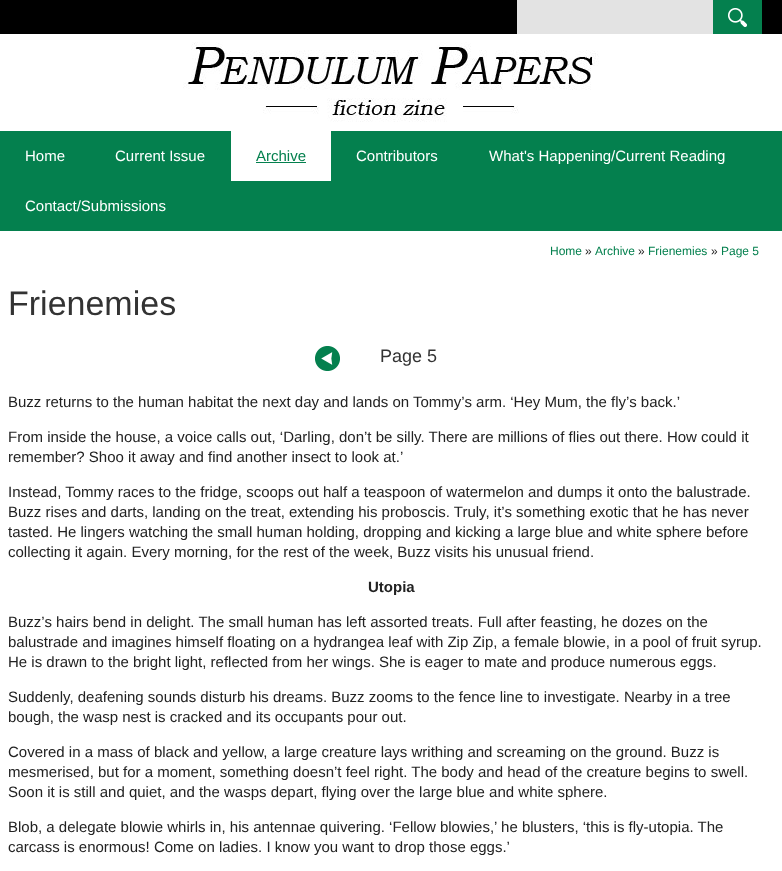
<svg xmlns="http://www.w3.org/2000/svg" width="782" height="871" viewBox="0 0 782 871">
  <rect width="100%" height="100%" fill="#fff"/>
  <path d="M0 0h782v34H0z" fill="#000"/>
  <path d="M517 0h196v34H517z" fill="#e3e3e3"/>
  <path d="M713 0h49v34H713z" fill="#04804e"/>
  <image x="728" y="8" width="19" height="19" href="img/1.png"/>
  <image x="183" y="42" width="416" height="80" href="img/2.png"/>
  <path d="M0 131h782v100H0z" fill="#04804e"/>
  <path d="M231 131h100v50H231z" fill="#fff"/>
  <path d="M256 162h50v1H256z" fill="#04804e"/>
  <image x="315" y="346" width="25" height="25" href="img/3.png"/>
  <g font-family="Liberation Sans" font-size="15" fill="#fff">
    <text x="25" y="161">Home</text>
    <text x="115" y="161">Current Issue</text>
  </g>
  <text x="256" y="161" font-family="Liberation Sans" font-size="15" fill="#04804e">Archive</text>
  <g font-family="Liberation Sans" font-size="15" fill="#fff">
    <text x="356" y="161">Contributors</text>
    <text x="489" y="161">What's Happening/Current Reading</text>
    <text x="25" y="211">Contact/Submissions</text>
  </g>
  <text x="550" y="255" font-family="Liberation Sans" font-size="12" fill="#04804e">Home</text>
  <text x="585" y="255" font-family="Liberation Sans" font-size="12" fill="#222">»</text>
  <text x="595" y="255" font-family="Liberation Sans" font-size="12" fill="#04804e">Archive</text>
  <text x="638" y="255" font-family="Liberation Sans" font-size="12" fill="#222">»</text>
  <text x="648" y="255" font-family="Liberation Sans" font-size="12" fill="#04804e">Frienemies</text>
  <text x="711" y="255" font-family="Liberation Sans" font-size="12" fill="#222">»</text>
  <text x="721" y="255" font-family="Liberation Sans" font-size="12" fill="#04804e">Page 5</text>
  <text x="8" y="315" font-family="Liberation Sans" font-size="34" fill="#333">Frienemies</text>
  <text x="380" y="362" font-family="Liberation Sans" font-size="18" fill="#333">Page 5</text>
  <g font-family="Liberation Sans" font-size="15" fill="#222">
    <text x="8" y="407">Buzz returns to the human habitat the next day and lands on Tommy’s arm. ‘Hey Mum, the fly’s back.’</text>
    <text x="8" y="442">From inside the house, a voice calls out, ‘Darling, don’t be silly. There are millions of flies out there. How could it</text>
    <text x="8" y="462">remember? Shoo it away and find another insect to look at.’</text>
    <text x="8" y="497">Instead, Tommy races to the fridge, scoops out half a teaspoon of watermelon and dumps it onto the balustrade.</text>
    <text x="8" y="517">Buzz rises and darts, landing on the treat, extending his proboscis. Truly, it’s something exotic that he has never</text>
    <text x="8" y="537">tasted. He lingers watching the small human holding, dropping and kicking a large blue and white sphere before</text>
    <text x="8" y="557">collecting it again. Every morning, for the rest of the week, Buzz visits his unusual friend.</text>
  </g>
  <text x="368" y="592" font-family="Liberation Sans" font-size="15" font-weight="bold" fill="#222">Utopia</text>
  <g font-family="Liberation Sans" font-size="15" fill="#222">
    <text x="8" y="627">Buzz’s hairs bend in delight. The small human has left assorted treats. Full after feasting, he dozes on the</text>
    <text x="8" y="647">balustrade and imagines himself floating on a hydrangea leaf with Zip Zip, a female blowie, in a pool of fruit syrup.</text>
    <text x="8" y="667">He is drawn to the bright light, reflected from her wings. She is eager to mate and produce numerous eggs.</text>
    <text x="8" y="702">Suddenly, deafening sounds disturb his dreams. Buzz zooms to the fence line to investigate. Nearby in a tree</text>
    <text x="8" y="722">bough, the wasp nest is cracked and its occupants pour out.</text>
    <text x="8" y="757">Covered in a mass of black and yellow, a large creature lays writhing and screaming on the ground. Buzz is</text>
    <text x="8" y="777">mesmerised, but for a moment, something doesn’t feel right. The body and head of the creature begins to swell.</text>
    <text x="8" y="797">Soon it is still and quiet, and the wasps depart, flying over the large blue and white sphere.</text>
    <text x="8" y="832">Blob, a delegate blowie whirls in, his antennae quivering. ‘Fellow blowies,’ he blusters, ‘this is fly-utopia. The</text>
    <text x="8" y="852">carcass is enormous! Come on ladies. I know you want to drop those eggs.’</text>
  </g>
</svg>
